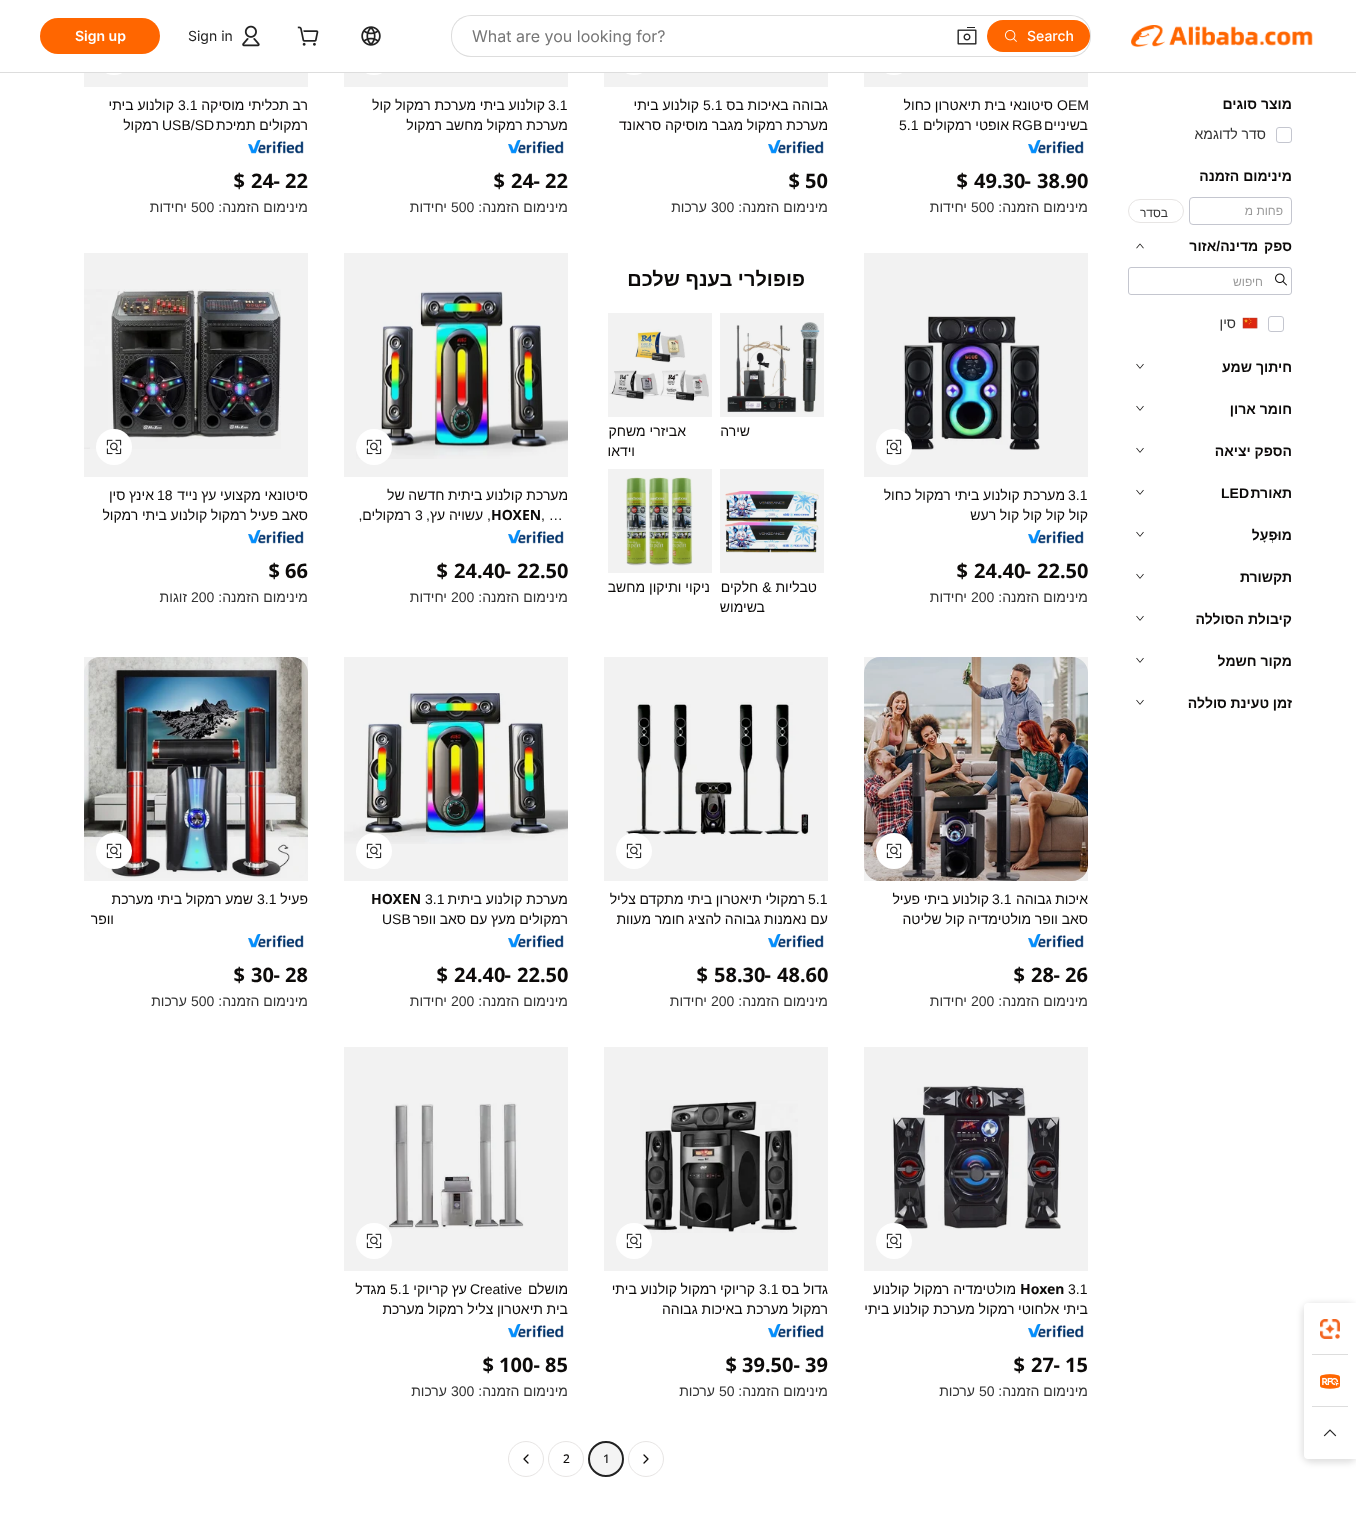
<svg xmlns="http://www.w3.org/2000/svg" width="1356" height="1519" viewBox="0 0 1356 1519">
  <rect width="100%" height="100%" fill="#fff"/>
  <path d="M864 73h224v14H864z" fill="#0000000d"/>
  <circle cx="894" cy="57" r="18" fill="#fff"/>
  <path d="M604 73h224v14H604z" fill="#0000000d"/>
  <circle cx="634" cy="57" r="18" fill="#fff"/>
  <path d="M344 73h224v14H344z" fill="#0000000d"/>
  <circle cx="374" cy="57" r="18" fill="#fff"/>
  <path d="M84 73h224v14H84z" fill="#0000000d"/>
  <circle cx="114" cy="57" r="18" fill="#fff"/>
  <path d="M0 72h1356v1H0z" fill="#ddd"/>
  <image x="1131" y="25" width="182" height="22" href="img/1.png"/>
  <rect x="451" y="15" width="640" height="42" rx="20" fill="#ddd"/>
  <rect x="452" y="16" width="638" height="40" rx="19" fill="#fff"/>
  <rect x="987" y="20" width="103" height="32" rx="16" fill="#f60"/>
  <image x="1005" y="30" width="12" height="12" href="img/2.png"/>
  <image x="957" y="27" width="20" height="18" href="img/3.png"/>
  <image x="361" y="26" width="20" height="20" href="img/4.png"/>
  <image x="297" y="26" width="22" height="20" href="img/5.png"/>
  <image x="242" y="25" width="18" height="22" href="img/6.png"/>
  <rect x="40" y="18" width="120" height="36" rx="18" fill="#f60"/>
  <rect x="1302" y="1303" width="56" height="160" rx="10" fill="#0000001f" filter="blur(3px)"/>
  <path d="M1312 1303H1356V1459H1312C1307.5 1459 1304 1455.5 1304 1451V1311C1304 1306.5 1307.5 1303 1312 1303Z" fill="#fff"/>
  <rect x="1304" y="1303" width="52" height="52" rx="4" fill="#fff"/>
  <image x="1320" y="1319" width="20" height="20" href="img/7.png"/>
  <path d="M1312 1354h36v1H1312z" fill="#ddd"/>
  <image x="1320" y="1374" width="20" height="15" href="img/8.png"/>
  <path d="M1312 1406h36v1H1312z" fill="#ddd"/>
  <rect x="1304" y="1407" width="52" height="52" rx="4" fill="#fff"/>
  <image x="1323" y="1429" width="14" height="8" href="img/9.png"/>
  <rect x="1276.5" y="127.5" width="15" height="15" rx="2.5" fill="none" stroke="#c4c6cf"/>
  <rect x="1189.5" y="197.5" width="102" height="27" rx="3.5" fill="none" stroke="#c4c6cf"/>
  <rect x="1128.5" y="199.5" width="55" height="23" rx="11.5" fill="none" stroke="#e7e5e4"/>
  <image x="1136" y="243" width="8" height="6" href="img/10.png"/>
  <rect x="1128.5" y="267.5" width="163" height="27" rx="2.5" fill="none" stroke="#c4c6cf"/>
  <image x="1275" y="273" width="12" height="13" href="img/11.png"/>
  <rect x="1268.5" y="316.5" width="15" height="15" rx="2.5" fill="none" stroke="#c4c6cf"/>
  <image x="1242" y="317" width="16" height="12" href="img/12.png"/>
  <image x="1136" y="363" width="8" height="6" href="img/13.png"/>
  <image x="1136" y="405" width="8" height="6" href="img/13.png"/>
  <image x="1136" y="447" width="8" height="6" href="img/13.png"/>
  <image x="1136" y="489" width="8" height="6" href="img/13.png"/>
  <image x="1136" y="531" width="8" height="6" href="img/13.png"/>
  <image x="1136" y="573" width="8" height="6" href="img/13.png"/>
  <image x="1136" y="615" width="8" height="6" href="img/13.png"/>
  <image x="1136" y="657" width="8" height="6" href="img/13.png"/>
  <image x="1136" y="699" width="8" height="6" href="img/13.png"/>
  <image x="1028" y="140" width="56" height="14" href="img/14.png"/>
  <image x="768" y="140" width="56" height="14" href="img/14.png"/>
  <image x="508" y="140" width="56" height="14" href="img/14.png"/>
  <image x="248" y="140" width="56" height="14" href="img/14.png"/>
  <image x="903" y="316" width="137" height="134" href="img/15.png"/>
  <path d="M864 253h224v224H864z" fill="#0000000d"/>
  <circle cx="894" cy="447" r="18" fill="#fff"/>
  <image x="886" y="439" width="16" height="16" href="img/16.png"/>
  <image x="1028" y="530" width="56" height="14" href="img/14.png"/>
  <image x="727" y="322" width="93" height="91" href="img/17.png"/>
  <path d="M720 313h104v104H720z" fill="#0000000d"/>
  <image x="609" y="329" width="100" height="73" href="img/18.png"/>
  <path d="M608 313h104v104H608z" fill="#0000000d"/>
  <image x="725" y="491" width="94" height="62" href="img/19.png"/>
  <path d="M720 469h104v104H720z" fill="#0000000d"/>
  <image x="626" y="477" width="67" height="89" href="img/20.png"/>
  <path d="M608 469h104v104H608z" fill="#0000000d"/>
  <image x="356" y="291" width="212" height="168" href="img/21.png"/>
  <path d="M344 253h224v224H344z" fill="#0000000d"/>
  <circle cx="374" cy="447" r="18" fill="#fff"/>
  <image x="366" y="439" width="16" height="16" href="img/16.png"/>
  <image x="508" y="530" width="56" height="14" href="img/14.png"/>
  <image x="84" y="289" width="197" height="160" href="img/22.png"/>
  <path d="M84 253h224v224H84z" fill="#0000000d"/>
  <circle cx="114" cy="447" r="18" fill="#fff"/>
  <image x="106" y="439" width="16" height="16" href="img/16.png"/>
  <image x="248" y="530" width="56" height="14" href="img/14.png"/>
  <image x="864" y="657" width="224" height="224" href="img/23.png"/>
  <path d="M864 657h224v224H864z" fill="#0000000d"/>
  <circle cx="894" cy="851" r="18" fill="#fff"/>
  <image x="886" y="843" width="16" height="16" href="img/16.png"/>
  <image x="1028" y="934" width="56" height="14" href="img/14.png"/>
  <image x="626" y="702" width="184" height="134" href="img/24.png"/>
  <path d="M604 657h224v224H604z" fill="#0000000d"/>
  <circle cx="634" cy="851" r="18" fill="#fff"/>
  <image x="626" y="843" width="16" height="16" href="img/16.png"/>
  <image x="768" y="934" width="56" height="14" href="img/14.png"/>
  <image x="344" y="691" width="224" height="153" href="img/25.png"/>
  <path d="M344 657h224v224H344z" fill="#0000000d"/>
  <circle cx="374" cy="851" r="18" fill="#fff"/>
  <image x="366" y="843" width="16" height="16" href="img/16.png"/>
  <image x="508" y="934" width="56" height="14" href="img/14.png"/>
  <image x="84" y="657" width="224" height="221" href="img/26.png"/>
  <path d="M84 657h224v224H84z" fill="#0000000d"/>
  <circle cx="114" cy="851" r="18" fill="#fff"/>
  <image x="106" y="843" width="16" height="16" href="img/16.png"/>
  <image x="248" y="934" width="56" height="14" href="img/14.png"/>
  <image x="891" y="1085" width="170" height="144" href="img/27.png"/>
  <path d="M864 1047h224v224H864z" fill="#0000000d"/>
  <circle cx="894" cy="1241" r="18" fill="#fff"/>
  <image x="886" y="1233" width="16" height="16" href="img/16.png"/>
  <image x="1028" y="1324" width="56" height="14" href="img/14.png"/>
  <image x="640" y="1100" width="158" height="133" href="img/28.png"/>
  <path d="M604 1047h224v224H604z" fill="#0000000d"/>
  <circle cx="634" cy="1241" r="18" fill="#fff"/>
  <image x="626" y="1233" width="16" height="16" href="img/16.png"/>
  <image x="768" y="1324" width="56" height="14" href="img/14.png"/>
  <image x="389" y="1102" width="135" height="127" href="img/29.png"/>
  <path d="M344 1047h224v224H344z" fill="#0000000d"/>
  <circle cx="374" cy="1241" r="18" fill="#fff"/>
  <image x="366" y="1233" width="16" height="16" href="img/16.png"/>
  <image x="508" y="1324" width="56" height="14" href="img/14.png"/>
  <path d="M646 1441.5C636.5 1441.5 628.5 1449.5 628.5 1459C628.5 1468.5 636.5 1476.5 646 1476.5C655.5 1476.5 663.5 1468.5 663.5 1459C663.5 1449.5 655.5 1441.5 646 1441.5Z" fill="none" stroke="#e7e5e4"/>
  <path d="M644 1463L648 1459L644 1455" fill="none" stroke="#0c0a09" stroke-width="1.3" stroke-linecap="round" stroke-linejoin="round"/>
  <circle cx="606" cy="1459" r="17" fill="#f4f4f4" stroke="#222" stroke-width="2"/>
  <circle cx="566" cy="1459" r="17.5" fill="none" stroke="#e7e5e4"/>
  <path d="M526 1441.5C516.5 1441.5 508.5 1449.5 508.5 1459C508.5 1468.5 516.5 1476.5 526 1476.5C535.5 1476.5 543.5 1468.5 543.5 1459C543.5 1449.5 535.5 1441.5 526 1441.5Z" fill="none" stroke="#e7e5e4"/>
  <path d="M528 1463L524 1459L528 1455" fill="none" stroke="#0c0a09" stroke-width="1.3" stroke-linecap="round" stroke-linejoin="round"/>
  <text x="1027" y="41" font-family="Inter" font-size="14" font-weight="500" fill="#fff">Search</text>
  <text x="472" y="42" font-family="Inter" font-size="16" fill="#767676">What are you looking for?</text>
  <text x="188" y="41" font-family="Inter" font-size="14" fill="#222">Sign in</text>
  <text x="75" y="41" font-family="Inter" font-size="14" font-weight="600" fill="#fff">Sign up</text>
  <text x="1292" y="109" font-family="Liberation Sans" font-size="14" font-weight="bold" direction="rtl" fill="#0c0a09">מוצר סוגים</text>
  <text x="1266" y="139" font-family="Liberation Sans" font-size="14" direction="rtl" fill="#333">סדר לדוגמא</text>
  <text x="1292" y="181" font-family="Liberation Sans" font-size="14" font-weight="bold" direction="rtl" fill="#0c0a09">מינימום הזמנה</text>
  <text x="1283" y="215" font-family="Liberation Sans" font-size="12" direction="rtl" fill="#999">פחות מ</text>
  <text x="1168" y="217" font-family="Liberation Sans" font-size="12" direction="rtl" fill="#333">בסדר</text>
  <text x="1292" y="251" word-spacing="2" font-family="Liberation Sans" font-size="14" font-weight="bold" direction="rtl" fill="#0c0a09">ספק מדינה/אזור</text>
  <text x="1263" y="286" font-family="Liberation Sans" font-size="12" direction="rtl" fill="#999">חיפוש</text>
  <text x="1236" y="328" font-family="Liberation Sans" font-size="14" direction="rtl" fill="#333">סין</text>
  <g font-family="Liberation Sans" font-size="14" font-weight="bold" direction="rtl" fill="#0c0a09">
    <text x="1292" y="372">חיתוך שמע</text>
    <text x="1292" y="414">חומר ארון</text>
    <text x="1292" y="456">הספק יציאה</text>
    <text x="1292" y="498">תאורת</text>
  </g>
  <text x="1221" y="498" font-family="Liberation Sans" font-size="14" font-weight="bold" fill="#0c0a09">LED</text>
  <g font-family="Liberation Sans" font-size="14" font-weight="bold" direction="rtl" fill="#0c0a09">
    <text x="1292" y="540">מוּפְעָל</text>
    <text x="1292" y="582">תקשורת</text>
    <text x="1292" y="624">קיבולת הסוללה</text>
    <text x="1292" y="666">מקור חשמל</text>
    <text x="1292" y="708" word-spacing="-0.25">זמן טעינת סוללה</text>
  </g>
  <text x="1057" y="110" font-family="Liberation Sans" font-size="14" fill="#0c0a09">OEM</text>
  <g font-family="Liberation Sans" font-size="14" direction="rtl" fill="#0c0a09">
    <text x="1053" y="110" word-spacing="-0.25">סיטונאי בית תיאטרון כחול</text>
    <text x="1088" y="130">בשיניים</text>
  </g>
  <text x="1012" y="130" font-family="Liberation Sans" font-size="14" fill="#0c0a09">RGB</text>
  <text x="1009" y="130" word-spacing="-0.25" font-family="Liberation Sans" font-size="14" direction="rtl" fill="#0c0a09">אופטי רמקולים</text>
  <text x="899" y="130" font-family="Liberation Sans" font-size="14" fill="#0c0a09">5.1</text>
  <text x="1037" y="188" font-family="Noto Sans" font-size="20" font-weight="bold" fill="#0c0a09">38.90</text>
  <text x="1031" y="188" font-family="Noto Sans" font-size="20" font-weight="bold" direction="rtl" fill="#0c0a09">-</text>
  <text x="974" y="188" font-family="Noto Sans" font-size="20" font-weight="bold" fill="#0c0a09">49.30</text>
  <text x="968" y="188" font-family="Noto Sans" font-size="20" font-weight="bold" direction="rtl" fill="#0c0a09">$</text>
  <text x="1088" y="212" font-family="Liberation Sans" font-size="14" direction="rtl" fill="#333">מינימום הזמנה:</text>
  <text x="971" y="212" font-family="Liberation Sans" font-size="14" fill="#333">500</text>
  <text x="967" y="212" font-family="Liberation Sans" font-size="14" direction="rtl" fill="#333">יחידות</text>
  <text x="828" y="110" word-spacing="-0.25" font-family="Liberation Sans" font-size="14" direction="rtl" fill="#0c0a09">גבוהה באיכות בס</text>
  <text x="703" y="110" font-family="Liberation Sans" font-size="14" fill="#0c0a09">5.1</text>
  <g font-family="Liberation Sans" font-size="14" direction="rtl" fill="#0c0a09">
    <text x="699" y="110">קולנוע ביתי</text>
    <text x="828" y="130" word-spacing="-0.25">מערכת רמקול מגבר מוסיקה סראונד</text>
  </g>
  <text x="805" y="188" font-family="Noto Sans" font-size="20" font-weight="bold" fill="#0c0a09">50</text>
  <text x="800" y="188" font-family="Noto Sans" font-size="20" font-weight="bold" direction="rtl" fill="#0c0a09">$</text>
  <text x="828" y="212" font-family="Liberation Sans" font-size="14" direction="rtl" fill="#333">מינימום הזמנה:</text>
  <text x="711" y="212" font-family="Liberation Sans" font-size="14" fill="#333">300</text>
  <text x="707" y="212" font-family="Liberation Sans" font-size="14" direction="rtl" fill="#333">ערכות</text>
  <text x="548" y="110" font-family="Liberation Sans" font-size="14" fill="#0c0a09">3.1</text>
  <g font-family="Liberation Sans" font-size="14" direction="rtl" fill="#0c0a09">
    <text x="545" y="110" word-spacing="-0.25">קולנוע ביתי מערכת רמקול קול</text>
    <text x="568" y="130" word-spacing="-0.25">מערכת רמקול מחשב רמקול</text>
  </g>
  <text x="545" y="188" font-family="Noto Sans" font-size="20" font-weight="bold" fill="#0c0a09">22</text>
  <text x="540" y="188" font-family="Noto Sans" font-size="20" font-weight="bold" direction="rtl" fill="#0c0a09">-</text>
  <text x="511" y="188" font-family="Noto Sans" font-size="20" font-weight="bold" fill="#0c0a09">24</text>
  <text x="505" y="188" font-family="Noto Sans" font-size="20" font-weight="bold" direction="rtl" fill="#0c0a09">$</text>
  <text x="568" y="212" font-family="Liberation Sans" font-size="14" direction="rtl" fill="#333">מינימום הזמנה:</text>
  <text x="451" y="212" font-family="Liberation Sans" font-size="14" fill="#333">500</text>
  <text x="447" y="212" font-family="Liberation Sans" font-size="14" direction="rtl" fill="#333">יחידות</text>
  <text x="308" y="110" word-spacing="-0.25" font-family="Liberation Sans" font-size="14" direction="rtl" fill="#0c0a09">רב תכליתי מוסיקה</text>
  <text x="178" y="110" font-family="Liberation Sans" font-size="14" fill="#0c0a09">3.1</text>
  <g font-family="Liberation Sans" font-size="14" direction="rtl" fill="#0c0a09">
    <text x="174" y="110">קולנוע ביתי</text>
    <text x="308" y="130" word-spacing="-0.25">רמקולים תמיכת</text>
  </g>
  <text x="162" y="130" font-family="Liberation Sans" font-size="14" fill="#0c0a09">USB/SD</text>
  <text x="159" y="130" font-family="Liberation Sans" font-size="14" direction="rtl" fill="#0c0a09">רמקול</text>
  <text x="285" y="188" font-family="Noto Sans" font-size="20" font-weight="bold" fill="#0c0a09">22</text>
  <text x="280" y="188" font-family="Noto Sans" font-size="20" font-weight="bold" direction="rtl" fill="#0c0a09">-</text>
  <text x="251" y="188" font-family="Noto Sans" font-size="20" font-weight="bold" fill="#0c0a09">24</text>
  <text x="245" y="188" font-family="Noto Sans" font-size="20" font-weight="bold" direction="rtl" fill="#0c0a09">$</text>
  <text x="308" y="212" font-family="Liberation Sans" font-size="14" direction="rtl" fill="#333">מינימום הזמנה:</text>
  <text x="191" y="212" font-family="Liberation Sans" font-size="14" fill="#333">500</text>
  <text x="187" y="212" font-family="Liberation Sans" font-size="14" direction="rtl" fill="#333">יחידות</text>
  <text x="1068" y="500" font-family="Liberation Sans" font-size="14" fill="#0c0a09">3.1</text>
  <g font-family="Liberation Sans" font-size="14" direction="rtl" fill="#0c0a09">
    <text x="1065" y="500" word-spacing="-0.25">מערכת קולנוע ביתי רמקול כחול</text>
    <text x="1088" y="520" word-spacing="-0.25">קול קול קול קול רעש</text>
  </g>
  <text x="1037" y="578" font-family="Noto Sans" font-size="20" font-weight="bold" fill="#0c0a09">22.50</text>
  <text x="1031" y="578" font-family="Noto Sans" font-size="20" font-weight="bold" direction="rtl" fill="#0c0a09">-</text>
  <text x="974" y="578" font-family="Noto Sans" font-size="20" font-weight="bold" fill="#0c0a09">24.40</text>
  <text x="968" y="578" font-family="Noto Sans" font-size="20" font-weight="bold" direction="rtl" fill="#0c0a09">$</text>
  <text x="1088" y="602" font-family="Liberation Sans" font-size="14" direction="rtl" fill="#333">מינימום הזמנה:</text>
  <text x="971" y="602" font-family="Liberation Sans" font-size="14" fill="#333">200</text>
  <text x="967" y="602" font-family="Liberation Sans" font-size="14" direction="rtl" fill="#333">יחידות</text>
  <text x="805" y="286" font-family="Liberation Sans" font-size="20" font-weight="bold" direction="rtl" fill="#0c0a09">פופולרי בענף שלכם</text>
  <g font-family="Liberation Sans" font-size="14" direction="rtl" fill="#0c0a09">
    <text x="750" y="436">שירה</text>
    <text x="686" y="436">אביזרי משחק</text>
    <text x="635" y="456">וידאו</text>
    <text x="817" y="592">טבליות &amp; חלקים</text>
    <text x="765" y="612">בשימוש</text>
    <text x="710" y="592">ניקוי ותיקון מחשב</text>
    <text x="568" y="500" word-spacing="-0.25">מערכת קולנוע ביתית חדשה של</text>
  </g>
  <text x="541" y="520" font-family="Liberation Sans" font-size="14" fill="#0c0a09">, …</text>
  <text x="491" y="520" font-family="Noto Sans" font-size="14" font-weight="bold" fill="#0c0a09">HOXEN</text>
  <text x="491" y="520" font-family="Liberation Sans" font-size="14" direction="rtl" fill="#0c0a09">, עשויה עץ,</text>
  <text x="415" y="520" font-family="Liberation Sans" font-size="14" fill="#0c0a09">3</text>
  <text x="411" y="520" font-family="Liberation Sans" font-size="14" direction="rtl" fill="#0c0a09">רמקולים,</text>
  <text x="517" y="578" font-family="Noto Sans" font-size="20" font-weight="bold" fill="#0c0a09">22.50</text>
  <text x="511" y="578" font-family="Noto Sans" font-size="20" font-weight="bold" direction="rtl" fill="#0c0a09">-</text>
  <text x="454" y="578" font-family="Noto Sans" font-size="20" font-weight="bold" fill="#0c0a09">24.40</text>
  <text x="448" y="578" font-family="Noto Sans" font-size="20" font-weight="bold" direction="rtl" fill="#0c0a09">$</text>
  <text x="568" y="602" font-family="Liberation Sans" font-size="14" direction="rtl" fill="#333">מינימום הזמנה:</text>
  <text x="451" y="602" font-family="Liberation Sans" font-size="14" fill="#333">200</text>
  <text x="447" y="602" font-family="Liberation Sans" font-size="14" direction="rtl" fill="#333">יחידות</text>
  <text x="308" y="500" word-spacing="-0.25" font-family="Liberation Sans" font-size="14" direction="rtl" fill="#0c0a09">סיטונאי מקצועי עץ נייד</text>
  <text x="157" y="500" font-family="Liberation Sans" font-size="14" fill="#0c0a09">18</text>
  <g font-family="Liberation Sans" font-size="14" direction="rtl" fill="#0c0a09">
    <text x="154" y="500" word-spacing="-0.25">אינץ סין</text>
    <text x="308" y="520" word-spacing="-0.25">סאב פעיל רמקול קולנוע ביתי רמקול</text>
  </g>
  <text x="285" y="578" font-family="Noto Sans" font-size="20" font-weight="bold" fill="#0c0a09">66</text>
  <text x="280" y="578" font-family="Noto Sans" font-size="20" font-weight="bold" direction="rtl" fill="#0c0a09">$</text>
  <text x="308" y="602" font-family="Liberation Sans" font-size="14" direction="rtl" fill="#333">מינימום הזמנה:</text>
  <text x="191" y="602" font-family="Liberation Sans" font-size="14" fill="#333">200</text>
  <text x="187" y="602" font-family="Liberation Sans" font-size="14" direction="rtl" fill="#333">זוגות</text>
  <text x="1088" y="904" word-spacing="-0.25" font-family="Liberation Sans" font-size="14" direction="rtl" fill="#0c0a09">איכות גבוהה</text>
  <text x="992" y="904" font-family="Liberation Sans" font-size="14" fill="#0c0a09">3.1</text>
  <g font-family="Liberation Sans" font-size="14" direction="rtl" fill="#0c0a09">
    <text x="989" y="904" word-spacing="-0.25">קולנוע ביתי פעיל</text>
    <text x="1088" y="924" word-spacing="-0.25">סאב וופר מולטימדיה קול שליטה</text>
  </g>
  <text x="1065" y="982" font-family="Noto Sans" font-size="20" font-weight="bold" fill="#0c0a09">26</text>
  <text x="1060" y="982" font-family="Noto Sans" font-size="20" font-weight="bold" direction="rtl" fill="#0c0a09">-</text>
  <text x="1031" y="982" font-family="Noto Sans" font-size="20" font-weight="bold" fill="#0c0a09">28</text>
  <text x="1025" y="982" font-family="Noto Sans" font-size="20" font-weight="bold" direction="rtl" fill="#0c0a09">$</text>
  <text x="1088" y="1006" font-family="Liberation Sans" font-size="14" direction="rtl" fill="#333">מינימום הזמנה:</text>
  <text x="971" y="1006" font-family="Liberation Sans" font-size="14" fill="#333">200</text>
  <text x="967" y="1006" font-family="Liberation Sans" font-size="14" direction="rtl" fill="#333">יחידות</text>
  <text x="808" y="904" font-family="Liberation Sans" font-size="14" fill="#0c0a09">5.1</text>
  <g font-family="Liberation Sans" font-size="14" direction="rtl" fill="#0c0a09">
    <text x="805" y="904" word-spacing="-0.25">רמקולי תיאטרון ביתי מתקדם צליל</text>
    <text x="828" y="924" word-spacing="-0.25">עם נאמנות גבוהה להציג חומר מעוות</text>
  </g>
  <text x="777" y="982" font-family="Noto Sans" font-size="20" font-weight="bold" fill="#0c0a09">48.60</text>
  <text x="771" y="982" font-family="Noto Sans" font-size="20" font-weight="bold" direction="rtl" fill="#0c0a09">-</text>
  <text x="714" y="982" font-family="Noto Sans" font-size="20" font-weight="bold" fill="#0c0a09">58.30</text>
  <text x="708" y="982" font-family="Noto Sans" font-size="20" font-weight="bold" direction="rtl" fill="#0c0a09">$</text>
  <text x="828" y="1006" font-family="Liberation Sans" font-size="14" direction="rtl" fill="#333">מינימום הזמנה:</text>
  <text x="711" y="1006" font-family="Liberation Sans" font-size="14" fill="#333">200</text>
  <text x="707" y="1006" font-family="Liberation Sans" font-size="14" direction="rtl" fill="#333">יחידות</text>
  <text x="568" y="904" font-family="Liberation Sans" font-size="14" direction="rtl" fill="#0c0a09">מערכת קולנוע ביתית</text>
  <text x="425" y="904" font-family="Liberation Sans" font-size="14" fill="#0c0a09">3.1</text>
  <text x="371" y="904" font-family="Noto Sans" font-size="14" font-weight="bold" fill="#0c0a09">HOXEN</text>
  <text x="568" y="924" word-spacing="-0.25" font-family="Liberation Sans" font-size="14" direction="rtl" fill="#0c0a09">רמקולים מעץ עם סאב וופר</text>
  <text x="382" y="924" font-family="Liberation Sans" font-size="14" fill="#0c0a09">USB</text>
  <text x="517" y="982" font-family="Noto Sans" font-size="20" font-weight="bold" fill="#0c0a09">22.50</text>
  <text x="511" y="982" font-family="Noto Sans" font-size="20" font-weight="bold" direction="rtl" fill="#0c0a09">-</text>
  <text x="454" y="982" font-family="Noto Sans" font-size="20" font-weight="bold" fill="#0c0a09">24.40</text>
  <text x="448" y="982" font-family="Noto Sans" font-size="20" font-weight="bold" direction="rtl" fill="#0c0a09">$</text>
  <text x="568" y="1006" font-family="Liberation Sans" font-size="14" direction="rtl" fill="#333">מינימום הזמנה:</text>
  <text x="451" y="1006" font-family="Liberation Sans" font-size="14" fill="#333">200</text>
  <text x="447" y="1006" font-family="Liberation Sans" font-size="14" direction="rtl" fill="#333">יחידות</text>
  <text x="308" y="904" font-family="Liberation Sans" font-size="14" direction="rtl" fill="#0c0a09">פעיל</text>
  <text x="257" y="904" font-family="Liberation Sans" font-size="14" fill="#0c0a09">3.1</text>
  <g font-family="Liberation Sans" font-size="14" direction="rtl" fill="#0c0a09">
    <text x="253" y="904" word-spacing="-0.25">שמע רמקול ביתי מערכת</text>
    <text x="114" y="924">וופר</text>
  </g>
  <text x="285" y="982" font-family="Noto Sans" font-size="20" font-weight="bold" fill="#0c0a09">28</text>
  <text x="280" y="982" font-family="Noto Sans" font-size="20" font-weight="bold" direction="rtl" fill="#0c0a09">-</text>
  <text x="251" y="982" font-family="Noto Sans" font-size="20" font-weight="bold" fill="#0c0a09">30</text>
  <text x="245" y="982" font-family="Noto Sans" font-size="20" font-weight="bold" direction="rtl" fill="#0c0a09">$</text>
  <text x="308" y="1006" font-family="Liberation Sans" font-size="14" direction="rtl" fill="#333">מינימום הזמנה:</text>
  <text x="191" y="1006" font-family="Liberation Sans" font-size="14" fill="#333">500</text>
  <text x="187" y="1006" font-family="Liberation Sans" font-size="14" direction="rtl" fill="#333">ערכות</text>
  <text x="1068" y="1294" font-family="Liberation Sans" font-size="14" fill="#0c0a09">3.1</text>
  <text x="1020" y="1294" font-family="Noto Sans" font-size="14" font-weight="bold" fill="#0c0a09">Hoxen</text>
  <g font-family="Liberation Sans" font-size="14" direction="rtl" fill="#0c0a09">
    <text x="1016" y="1294">מולטימדיה רמקול קולנוע</text>
    <text x="1088" y="1314" word-spacing="-0.25">ביתי אלחוטי רמקול מערכת קולנוע ביתי</text>
  </g>
  <text x="1065" y="1372" font-family="Noto Sans" font-size="20" font-weight="bold" fill="#0c0a09">15</text>
  <text x="1060" y="1372" font-family="Noto Sans" font-size="20" font-weight="bold" direction="rtl" fill="#0c0a09">-</text>
  <text x="1031" y="1372" font-family="Noto Sans" font-size="20" font-weight="bold" fill="#0c0a09">27</text>
  <text x="1025" y="1372" font-family="Noto Sans" font-size="20" font-weight="bold" direction="rtl" fill="#0c0a09">$</text>
  <text x="1088" y="1396" font-family="Liberation Sans" font-size="14" direction="rtl" fill="#333">מינימום הזמנה:</text>
  <text x="979" y="1396" font-family="Liberation Sans" font-size="14" fill="#333">50</text>
  <text x="975" y="1396" font-family="Liberation Sans" font-size="14" direction="rtl" fill="#333">ערכות</text>
  <text x="828" y="1294" font-family="Liberation Sans" font-size="14" direction="rtl" fill="#0c0a09">גדול בס</text>
  <text x="759" y="1294" font-family="Liberation Sans" font-size="14" fill="#0c0a09">3.1</text>
  <g font-family="Liberation Sans" font-size="14" direction="rtl" fill="#0c0a09">
    <text x="755" y="1294" word-spacing="-0.25">קריוקי רמקול קולנוע ביתי</text>
    <text x="828" y="1314">רמקול מערכת באיכות גבוהה</text>
  </g>
  <text x="805" y="1372" font-family="Noto Sans" font-size="20" font-weight="bold" fill="#0c0a09">39</text>
  <text x="800" y="1372" font-family="Noto Sans" font-size="20" font-weight="bold" direction="rtl" fill="#0c0a09">-</text>
  <text x="742" y="1372" font-family="Noto Sans" font-size="20" font-weight="bold" fill="#0c0a09">39.50</text>
  <text x="737" y="1372" font-family="Noto Sans" font-size="20" font-weight="bold" direction="rtl" fill="#0c0a09">$</text>
  <text x="828" y="1396" font-family="Liberation Sans" font-size="14" direction="rtl" fill="#333">מינימום הזמנה:</text>
  <text x="719" y="1396" font-family="Liberation Sans" font-size="14" fill="#333">50</text>
  <text x="715" y="1396" font-family="Liberation Sans" font-size="14" direction="rtl" fill="#333">ערכות</text>
  <text x="568" y="1294" font-family="Liberation Sans" font-size="14" direction="rtl" fill="#0c0a09">מושלם</text>
  <text x="470" y="1294" font-family="Liberation Sans" font-size="14" fill="#0c0a09">Creative</text>
  <text x="467" y="1294" word-spacing="-0.25" font-family="Liberation Sans" font-size="14" direction="rtl" fill="#0c0a09">עץ קריוקי</text>
  <text x="390" y="1294" font-family="Liberation Sans" font-size="14" fill="#0c0a09">5.1</text>
  <g font-family="Liberation Sans" font-size="14" direction="rtl" fill="#0c0a09">
    <text x="386" y="1294">מגדל</text>
    <text x="568" y="1314" word-spacing="-0.25">בית תיאטרון צליל רמקול מערכת</text>
  </g>
  <text x="545" y="1372" font-family="Noto Sans" font-size="20" font-weight="bold" fill="#0c0a09">85</text>
  <text x="540" y="1372" font-family="Noto Sans" font-size="20" font-weight="bold" direction="rtl" fill="#0c0a09">-</text>
  <text x="499" y="1372" font-family="Noto Sans" font-size="20" font-weight="bold" fill="#0c0a09">100</text>
  <text x="494" y="1372" font-family="Noto Sans" font-size="20" font-weight="bold" direction="rtl" fill="#0c0a09">$</text>
  <text x="568" y="1396" font-family="Liberation Sans" font-size="14" direction="rtl" fill="#333">מינימום הזמנה:</text>
  <text x="451" y="1396" font-family="Liberation Sans" font-size="14" fill="#333">300</text>
  <text x="447" y="1396" font-family="Liberation Sans" font-size="14" direction="rtl" fill="#333">ערכות</text>
  <text x="603" y="1463" font-family="Noto Sans" font-size="12" font-weight="500" fill="#222">1</text>
  <text x="563" y="1463" font-family="Noto Sans" font-size="12" font-weight="500" fill="#0c0a09">2</text>
</svg>
